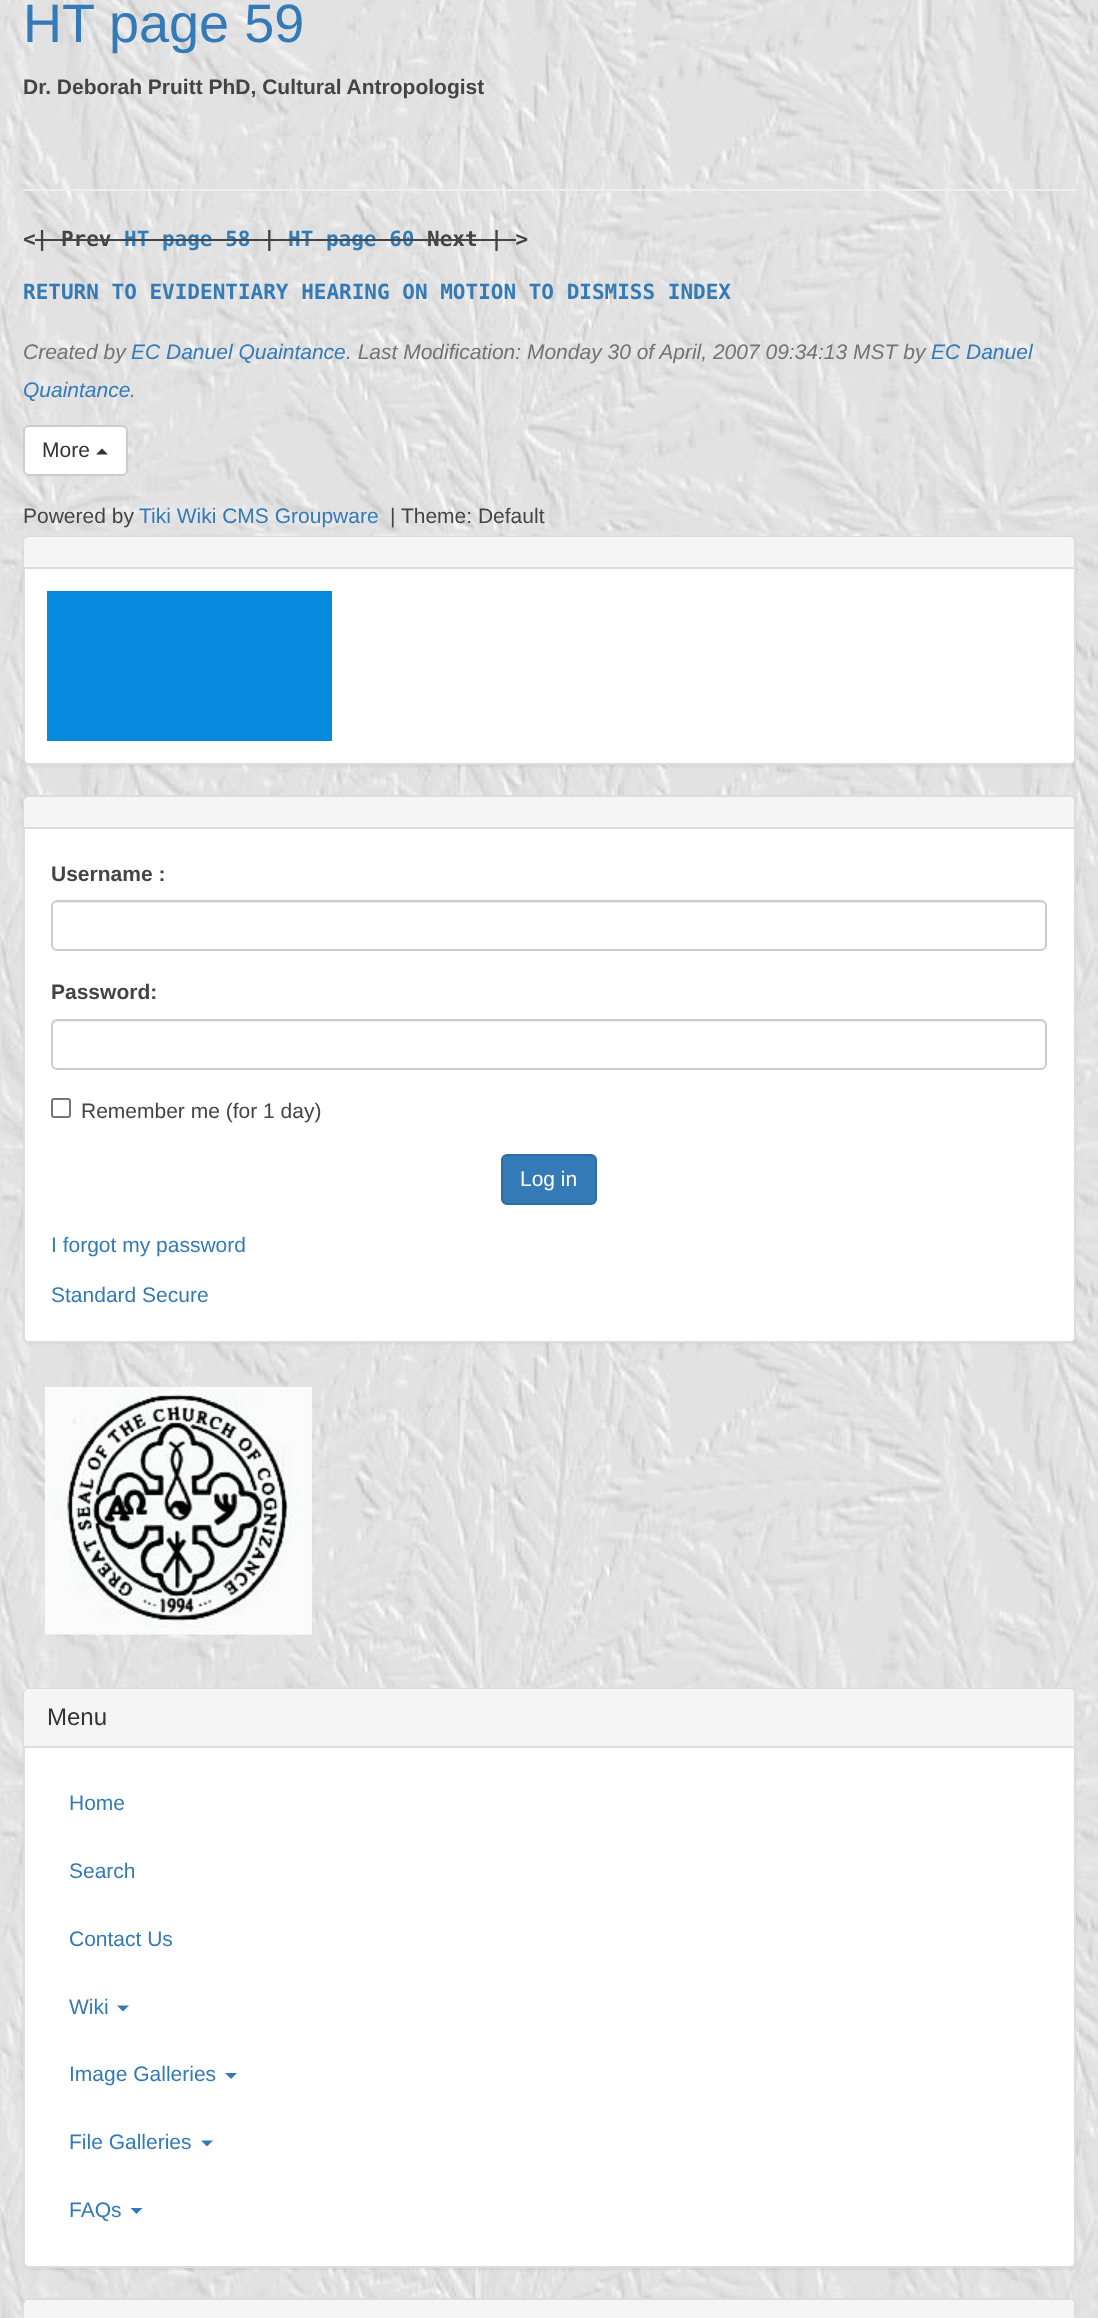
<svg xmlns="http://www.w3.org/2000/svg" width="1098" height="2318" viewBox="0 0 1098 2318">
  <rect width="100%" height="100%" fill="#fff"/>
  <image x="0" y="0" width="1098" height="2318" href="img/1.png"/>
  <path d="M23 189h1053v2H23z" fill="#eee"/>
  <path d="M35 239h88v2H35z" fill="#444"/>
  <path d="M251 239h37v2H251z" fill="#444"/>
  <path d="M414 239h102v2H414z" fill="#444"/>
  <rect x="24" y="426" width="103" height="49" rx="5" fill="#fff" stroke="#ccc" stroke-width="2"/>
  <path d="M108 454.5H96L102 448.5Z" fill="#333"/>
  <rect x="23" y="537" width="1053" height="230" rx="6" fill="#0000000d" filter="blur(1px)"/>
  <rect x="24" y="537" width="1051" height="227" rx="5" fill="#fff" stroke="#ddd" stroke-width="2"/>
  <path d="M29 537H1069C1072 537 1074 539 1074 542V569H24V542C24 539 26 537 29 537Z" fill="#f5f5f5"/>
  <path d="M24 567h1050v2H24z" fill="#ddd"/>
  <path d="M47 591h285v150H47z" fill="#078add"/>
  <rect x="23" y="797" width="1053" height="547" rx="6" fill="#0000000d" filter="blur(1px)"/>
  <rect x="24" y="796" width="1051" height="546" rx="5" fill="#fff" stroke="#ddd" stroke-width="2"/>
  <path d="M29 797H1069C1072 797 1074 799 1074 802V828H24V802C24 799 26 797 29 797Z" fill="#f5f5f5"/>
  <path d="M24 827h1050v2H24z" fill="#ddd"/>
  <path d="M57 903H1041C1043 903 1046 905 1046 908V907C1046 904 1044 902 1041 902H58C56 902 55 903 54 904Z" fill="#ececec"/>
  <rect x="52" y="901" width="994" height="49" rx="5" fill="none" stroke="#ccc" stroke-width="2"/>
  <path d="M57 1022H1041C1043 1022 1046 1024 1046 1026V1025C1046 1022 1044 1020 1041 1020H58C56 1020 54 1022 53 1024C54 1023 56 1022 57 1022Z" fill="#ececec"/>
  <rect x="52" y="1020" width="994" height="49" rx="5" fill="none" stroke="#ccc" stroke-width="2"/>
  <rect x="52" y="1099" width="18" height="18" rx="2" fill="none" stroke="#767676" stroke-width="2"/>
  <rect x="502" y="1155" width="94" height="49" rx="5" fill="#337ab7" stroke="#2e6da4" stroke-width="2"/>
  <image x="45" y="1387" width="267" height="248" href="img/2.png"/>
  <rect x="23" y="1689" width="1053" height="581" rx="6" fill="#0000000d" filter="blur(1px)"/>
  <rect x="24" y="1689" width="1051" height="578" rx="5" fill="#fff" stroke="#ddd" stroke-width="2"/>
  <path d="M29 1689H1069C1072 1689 1074 1691 1074 1694V1748H24V1694C24 1691 26 1689 29 1689Z" fill="#f5f5f5"/>
  <path d="M24 1746h1050v2H24z" fill="#ddd"/>
  <path d="M117 2005.5H129L123 2011.5Z" fill="#337ab7"/>
  <path d="M225 2073H237L231 2079Z" fill="#337ab7"/>
  <path d="M201 2140.5H213L207 2146.5Z" fill="#337ab7"/>
  <path d="M130.5 2208H142.5L136.5 2214Z" fill="#337ab7"/>
  <rect x="24" y="2299" width="1051" height="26" rx="5" fill="#fff" stroke="#ddd" stroke-width="2"/>
  <path d="M29 2300H1069C1072 2300 1074 2302 1074 2305V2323H24V2305C24 2302 26 2300 29 2300Z" fill="#f5f5f5"/>
  <text x="23" y="42" font-family="Liberation Sans" font-size="54" fill="#337ab7">HT page 59</text>
  <text x="23" y="94" font-family="Liberation Sans" font-size="21" font-weight="bold" fill="#444">Dr. Deborah Pruitt PhD, Cultural Antropologist</text>
  <text x="23" y="246" font-family="DejaVu Sans Mono" font-size="21" font-weight="bold" fill="#444">&lt;| Prev</text>
  <text x="124" y="246" font-family="DejaVu Sans Mono" font-size="21" font-weight="bold" fill="#337ab7">HT page 58</text>
  <path d="M123 239h128v2H123z" fill="#444"/>
  <text x="263" y="246" font-family="DejaVu Sans Mono" font-size="21" font-weight="bold" fill="#444">|</text>
  <text x="288" y="246" font-family="DejaVu Sans Mono" font-size="21" font-weight="bold" fill="#337ab7">HT page 60</text>
  <path d="M288 239h126v2H288z" fill="#444"/>
  <text x="427" y="246" font-family="DejaVu Sans Mono" font-size="21" font-weight="bold" fill="#444">Next | &gt;</text>
  <text x="23" y="299" font-family="DejaVu Sans Mono" font-size="21" font-weight="bold" fill="#337ab7">RETURN TO EVIDENTIARY HEARING ON MOTION TO DISMISS INDEX</text>
  <text x="23" y="359" font-family="Liberation Sans" font-size="21" font-style="italic" fill="#737373">Created by</text>
  <text x="131" y="359" font-family="Liberation Sans" font-size="21" font-style="italic" fill="#337ab7">EC Danuel Quaintance</text>
  <text x="346" y="359" font-family="Liberation Sans" font-size="21" font-style="italic" fill="#737373">. Last Modification: Monday 30 of April, 2007 09:34:13 MST by</text>
  <g font-family="Liberation Sans" font-size="21" font-style="italic" fill="#337ab7">
    <text x="931" y="359">EC Danuel</text>
    <text x="23" y="397">Quaintance</text>
  </g>
  <text x="130" y="397" font-family="Liberation Sans" font-size="21" font-style="italic" fill="#737373">.</text>
  <text x="42" y="457" font-family="Liberation Sans" font-size="21" fill="#333">More</text>
  <text x="23" y="523" font-family="Liberation Sans" font-size="21" fill="#444">Powered by</text>
  <text x="139" y="523" font-family="Liberation Sans" font-size="21" fill="#337ab7">Tiki Wiki CMS Groupware</text>
  <text x="390" y="523" font-family="Liberation Sans" font-size="21" fill="#444">| Theme: Default</text>
  <g font-family="Liberation Sans" font-size="21" font-weight="bold" fill="#444">
    <text x="51" y="881">Username :</text>
    <text x="51" y="999">Password:</text>
  </g>
  <text x="81" y="1118" font-family="Liberation Sans" font-size="21" fill="#444">Remember me (for 1 day)</text>
  <text x="520" y="1186" font-family="Liberation Sans" font-size="21" fill="#fff">Log in</text>
  <g font-family="Liberation Sans" font-size="21" fill="#337ab7">
    <text x="51" y="1252">I forgot my password</text>
    <text x="51" y="1302">Standard Secure</text>
  </g>
  <text x="47" y="1725" font-family="Liberation Sans" font-size="24" fill="#333">Menu</text>
  <g font-family="Liberation Sans" font-size="21" fill="#337ab7">
    <text x="69" y="1810">Home</text>
    <text x="69" y="1878">Search</text>
    <text x="69" y="1946">Contact Us</text>
    <text x="69" y="2014">Wiki</text>
    <text x="69" y="2081">Image Galleries</text>
    <text x="69" y="2149">File Galleries</text>
    <text x="69" y="2217">FAQs</text>
  </g>
</svg>
